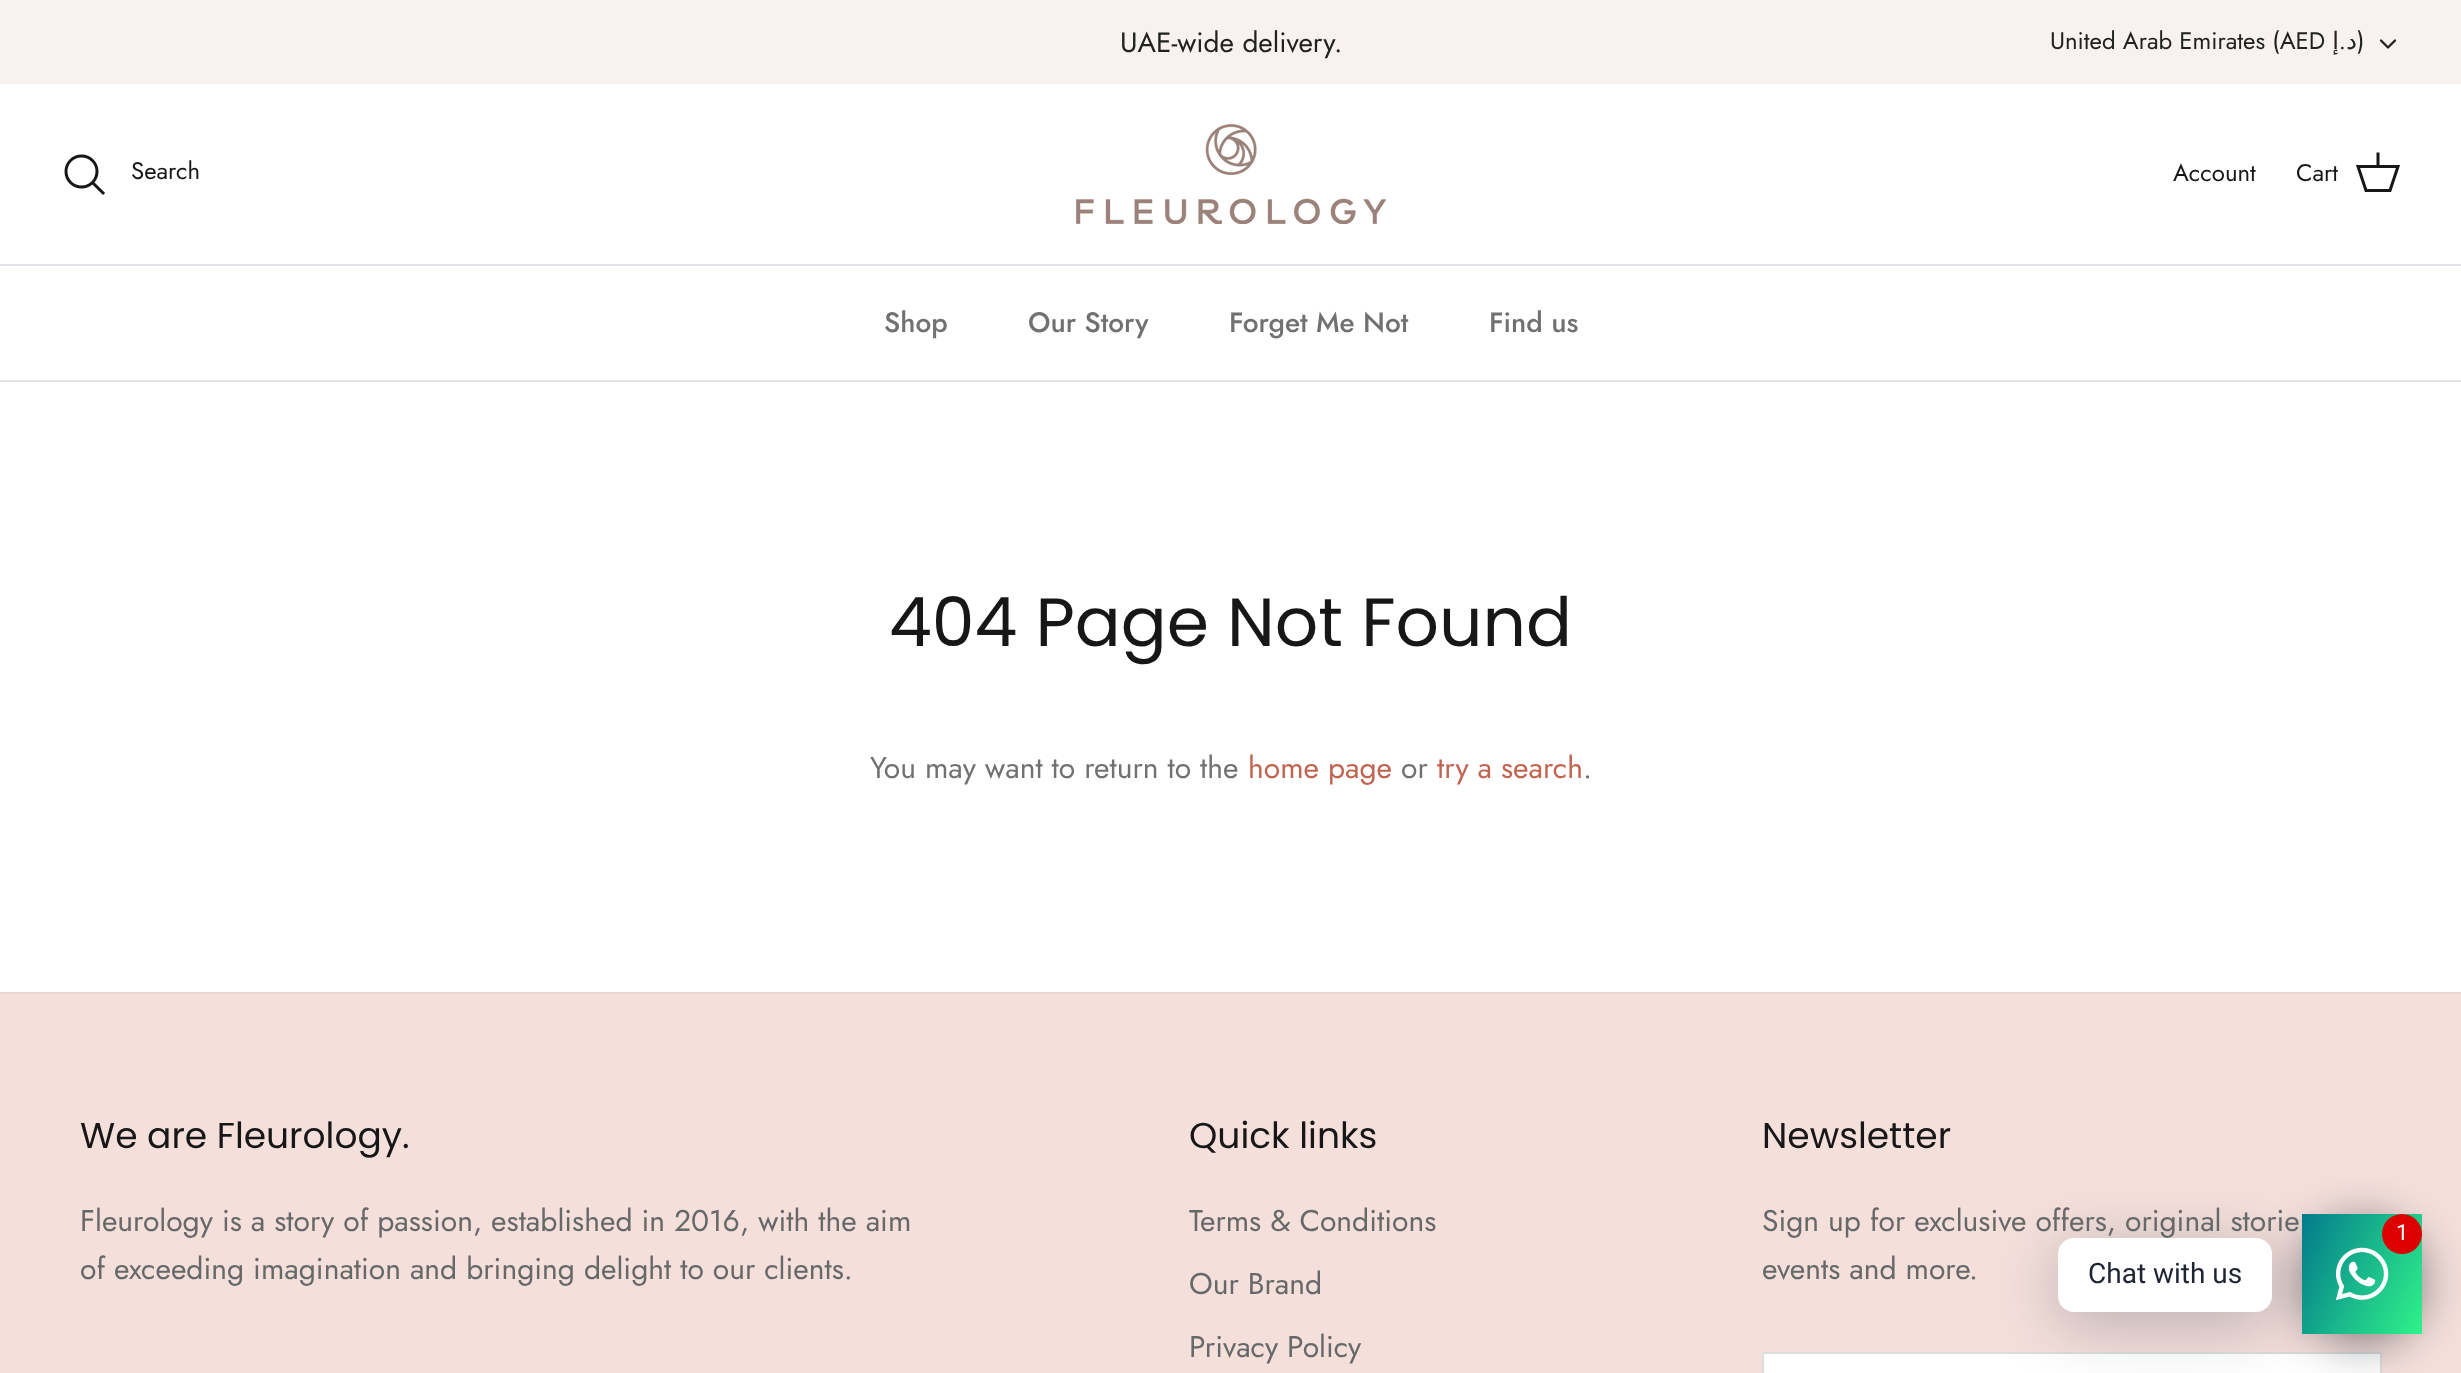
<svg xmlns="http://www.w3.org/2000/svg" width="2461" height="1373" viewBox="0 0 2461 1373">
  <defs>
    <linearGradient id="g1" gradientUnits="userSpaceOnUse" x1="2290" y1="1240" x2="2434" y2="1308"><stop offset="0" stop-color="#047c8d"/><stop offset="1" stop-color="#2ff289"/></linearGradient>
  </defs>
  <rect width="100%" height="100%" fill="#fff"/>
  <path d="M0 0h2461v84H0z" fill="#f7f1f0"/>
  <path d="M2381 40.5L2388 47.5L2395 40.5" fill="none" stroke="#212121" stroke-width="2.3" stroke-linecap="round" stroke-linejoin="round"/>
  <path d="M0 264h2461v2H0z" fill="#dfe3e8"/>
  <circle cx="81.5" cy="171.5" r="15.5" fill="none" stroke="#171717" stroke-width="3"/>
  <path d="M94 184L103 193" fill="none" stroke="#171717" stroke-width="3" stroke-linecap="square"/>
  <image x="1076" y="124" width="310" height="100" href="img/1.png"/>
  <path d="M2358 166.5H2398L2390 190.5H2366Z" fill="none" stroke="#171717" stroke-width="3"/>
  <path d="M2378 166V154" fill="none" stroke="#171717" stroke-width="3" stroke-linecap="square"/>
  <path d="M0 380h2461v2H0z" fill="#dfe3e8"/>
  <path d="M0 994h2461v379H0z" fill="#f4dfdb"/>
  <path d="M0 992h2461v2H0z" fill="#ecd6d1"/>
  <path d="M1763 1353h618v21H1763z" fill="#fff" stroke="#dbdcdc" stroke-width="2"/>
  <rect x="2302" y="1222" width="120" height="120" rx="60" fill="#02061080" filter="blur(24px)"/>
  <path d="M2302 1214h120v120H2302z" fill="url(#g1)"/>
  <rect x="2058" y="1250" width="214" height="74" rx="16" fill="#00122e3d" filter="blur(32px)"/>
  <image x="2335" y="1247" width="54" height="54" href="img/2.png"/>
  <circle cx="2402" cy="1234" r="20" fill="#d00"/>
  <rect x="2058" y="1238" width="214" height="74" rx="16" fill="#fff"/>
  <text x="1120" y="52" font-family="Jost" font-size="28" fill="#212121">UAE-wide delivery.</text>
  <text x="2050" y="49" font-family="Jost" font-size="24" fill="#212121">United Arab Emirates (AED</text>
  <text x="2339" y="49" font-family="DejaVu Sans" font-size="24" direction="rtl" fill="#212121">إ</text>
  <text x="2346" y="49" font-family="Jost" font-size="24" direction="rtl" fill="#212121">.</text>
  <text x="2357" y="49" font-family="DejaVu Sans" font-size="24" direction="rtl" fill="#212121">د</text>
  <text x="2357" y="49" font-family="Jost" font-size="24" fill="#212121">)</text>
  <g font-family="Jost" font-size="24" fill="#171717">
    <text x="131" y="179">Search</text>
    <text x="2173" y="181">Account</text>
    <text x="2296" y="181">Cart</text>
  </g>
  <g font-family="Jost" font-size="28" font-weight="500" fill="#707173">
    <text x="884" y="332">Shop</text>
    <text x="1028" y="332">Our Story</text>
    <text x="1229" y="332">Forget Me Not</text>
    <text x="1489" y="332">Find us</text>
  </g>
  <text x="889" y="646" font-family="Poppins" font-size="68" fill="#171717">404 Page Not Found</text>
  <text x="870" y="778" font-family="Jost" font-size="30" fill="#707173">You may want to return to the</text>
  <text x="1248" y="778" font-family="Jost" font-size="30" fill="#c16452">home page</text>
  <text x="1401" y="778" font-family="Jost" font-size="30" fill="#707173">or</text>
  <text x="1437" y="778" font-family="Jost" font-size="30" fill="#c16452">try a search</text>
  <text x="1583" y="778" font-family="Jost" font-size="30" fill="#707173">.</text>
  <text x="80" y="1148" font-family="Poppins" font-size="36" fill="#171717">We are Fleurology.</text>
  <g font-family="Jost" font-size="30" fill="#676869">
    <text x="80" y="1231">Fleurology is a story of passion, established in 2016, with the aim</text>
    <text x="80" y="1279">of exceeding imagination and bringing delight to our clients.</text>
  </g>
  <text x="1189" y="1148" font-family="Poppins" font-size="36" fill="#171717">Quick links</text>
  <g font-family="Jost" font-size="30" fill="#676869">
    <text x="1189" y="1231">Terms &amp; Conditions</text>
    <text x="1189" y="1294">Our Brand</text>
    <text x="1189" y="1357">Privacy Policy</text>
  </g>
  <text x="1762" y="1148" font-family="Poppins" font-size="36" fill="#171717">Newsletter</text>
  <g font-family="Jost" font-size="30" fill="#676869">
    <text x="1762" y="1231">Sign up for exclusive offers, original storie</text>
    <text x="1762" y="1279">events and more.</text>
  </g>
  <text x="2396" y="1240" font-family="Roboto" font-size="22" fill="#fff">1</text>
  <text x="2088" y="1283" font-family="Roboto" font-size="28" fill="#1e2433">Chat with us</text>
</svg>
